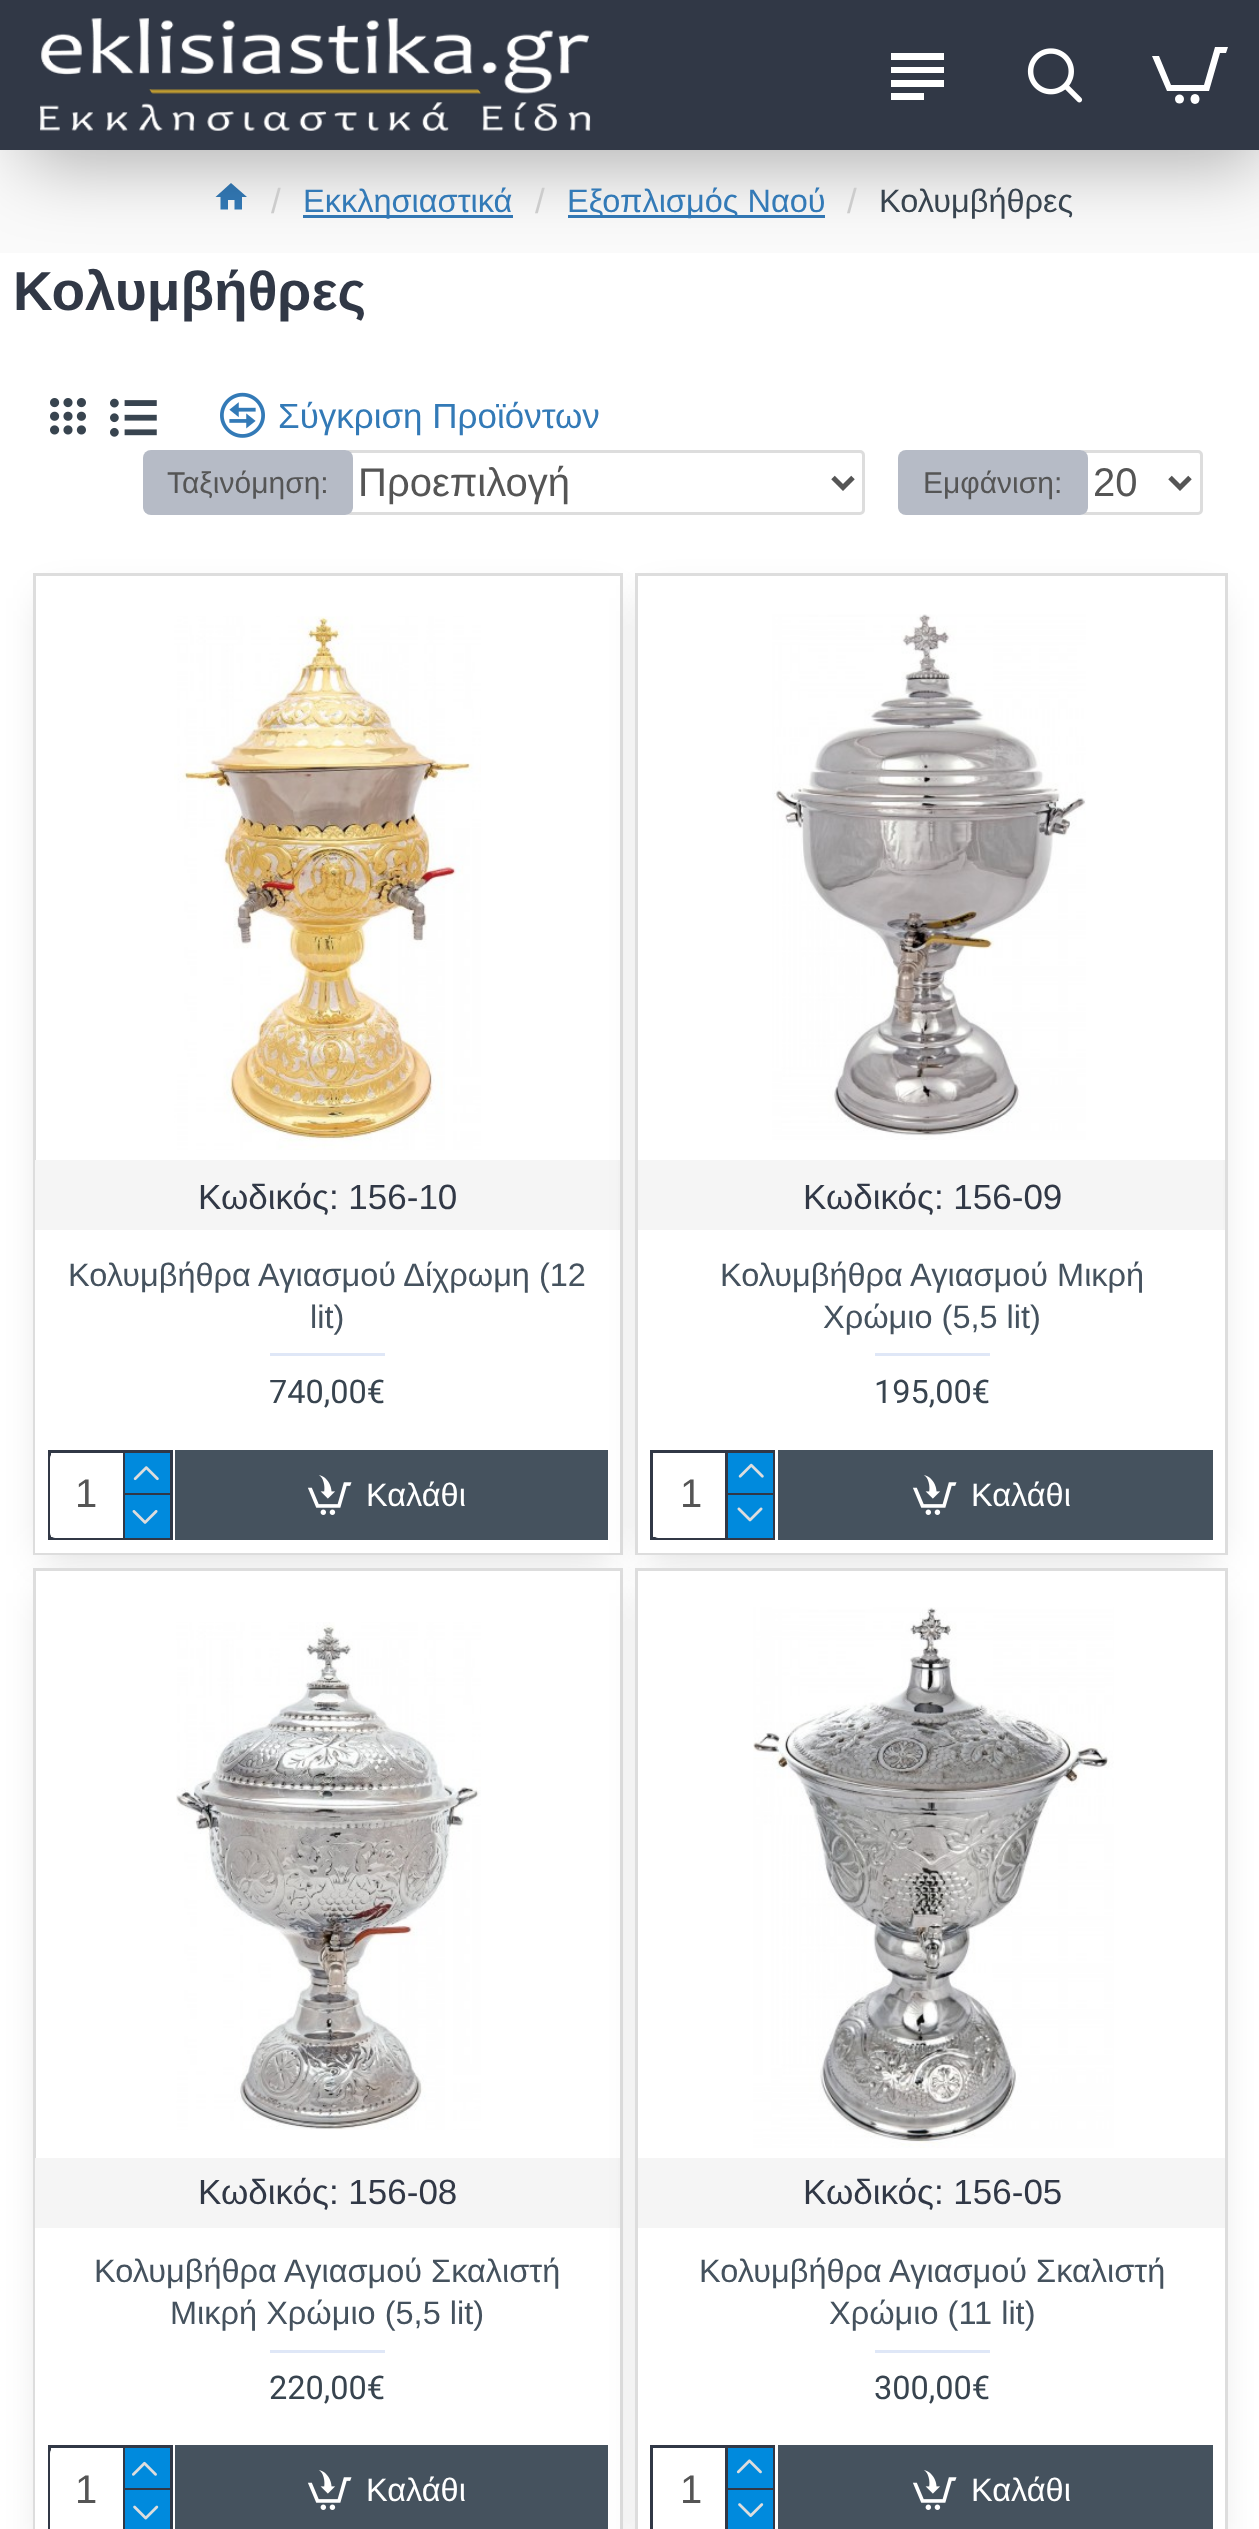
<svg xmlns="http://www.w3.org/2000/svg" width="1259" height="2529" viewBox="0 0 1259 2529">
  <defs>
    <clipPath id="clip1"><path d="M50 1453h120v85H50z"/></clipPath>
    <clipPath id="clip2"><path d="M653 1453h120v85H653z"/></clipPath>
  </defs>
  <rect width="100%" height="100%" fill="#fff"/>
  <path d="M0 150h1259v103H0z" fill="#fafafa"/>
  <path d="M228 209.5H220.5V197H215.5L231 183L247 197H242V209.5H234.5V200H228Z" fill="#337ab7"/>
  <path d="M303 215h210v3H303z" fill="#337ab7"/>
  <path d="M568 215h257v3H568z" fill="#337ab7"/>
  <path d="M25 38h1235v125H25z" fill="#0000004d" filter="blur(37.5px)"/>
  <path d="M0 0h1259v150H0z" fill="#313846"/>
  <image x="40" y="18" width="551" height="113" href="img/1.png"/>
  <path d="M891 53H944V60H891ZM891 87V80H944V87ZM944 67V73H891V67ZM924 93V100H891V93Z" fill="#fff"/>
  <image x="1027" y="48" width="56" height="55" href="img/2.png"/>
  <path d="M1184 99C1184 105 1175 105 1175 99C1175 93 1184 93 1184 99ZM1195 94C1189 94 1189 104 1195 104C1201 104 1201 94 1195 94ZM1215 47L1204 85H1171L1159 56H1152L1167 91H1209L1220 53H1226L1228 47Z" fill="#fff"/>
  <image x="50" y="398" width="36" height="37" href="img/3.png"/>
  <image x="110" y="398" width="47" height="39" href="img/4.png"/>
  <image x="220" y="392" width="45" height="46" href="img/5.png"/>
  <rect x="346.5" y="451.5" width="517" height="62" rx="3.5" fill="none" stroke="#ddd" stroke-width="3"/>
  <rect x="143" y="450" width="210" height="65" rx="8" fill="#b6bbc6"/>
  <path d="M833 477.5L843 487.5L853 477.5" fill="none" stroke="#555" stroke-width="5"/>
  <rect x="1081.5" y="451.5" width="120" height="62" rx="3.5" fill="none" stroke="#ddd" stroke-width="3"/>
  <rect x="898" y="450" width="190" height="65" rx="8" fill="#b6bbc6"/>
  <path d="M1170 477.5L1180 487.5L1190 477.5" fill="none" stroke="#555" stroke-width="5"/>
  <path d="M45 598h565v957H45z" fill="#00000026" filter="blur(19px)"/>
  <path d="M36 576h584v584H36z" fill="#fff"/>
  <path d="M34.5 574.5h587v979H34.5z" fill="none" stroke="#ddd" stroke-width="3"/>
  <image x="174" y="616" width="307" height="534" href="img/6.png"/>
  <path d="M35 1230h585v323H35z" fill="#fff"/>
  <path d="M35 1160h583v70H35z" fill="#f5f5f5"/>
  <path d="M270 1353h115v3H270z" fill="#dfe7f7"/>
  <path d="M49.5 1451.5h122v87H49.5z" fill="none" stroke="#313846" stroke-width="3"/>
  <g clip-path="url(#clip1)">
    <path d="M55 1463h110v75H55z" fill="#00000026" filter="blur(19px)"/>
  </g>
  <rect x="50" y="1453" width="120" height="85" rx="5" fill="#fff"/>
  <path d="M123 1453h2v85H123z" fill="#313846"/>
  <path d="M125 1453h45v40H125z" fill="#008add"/>
  <path d="M125 1493h45v2H125z" fill="#313846"/>
  <image x="133" y="1466" width="26" height="15" href="img/7.png"/>
  <path d="M125 1495h45v43H125z" fill="#008add"/>
  <image x="132" y="1510" width="26" height="14" href="img/8.png"/>
  <path d="M175 1450h433v90H175z" fill="#45525e"/>
  <image x="307" y="1475" width="45" height="40" href="img/9.png"/>
  <path d="M648 598h567v957H648z" fill="#00000026" filter="blur(19px)"/>
  <path d="M638 576h587v584H638z" fill="#fff"/>
  <path d="M636.5 574.5h590v979H636.5z" fill="none" stroke="#ddd" stroke-width="3"/>
  <image x="772" y="614" width="314" height="526" href="img/10.png"/>
  <path d="M638 1230h587v323H638z" fill="#fff"/>
  <path d="M638 1160h585v70H638z" fill="#f5f5f5"/>
  <path d="M875 1353h115v3H875z" fill="#dfe7f7"/>
  <path d="M651.5 1451.5h122v87H651.5z" fill="none" stroke="#313846" stroke-width="3"/>
  <g clip-path="url(#clip2)">
    <path d="M658 1463h110v75H658z" fill="#00000026" filter="blur(19px)"/>
  </g>
  <rect x="653" y="1453" width="120" height="85" rx="5" fill="#fff"/>
  <path d="M725 1453h3v85H725z" fill="#313846"/>
  <path d="M728 1453h45v40H728z" fill="#008add"/>
  <path d="M728 1493h45v2H728z" fill="#313846"/>
  <image x="738" y="1463" width="26" height="15" href="img/11.png"/>
  <path d="M728 1495h45v43H728z" fill="#008add"/>
  <image x="737" y="1507" width="26" height="15" href="img/12.png"/>
  <path d="M778 1450h435v90H778z" fill="#45525e"/>
  <image x="912" y="1475" width="45" height="40" href="img/9.png"/>
  <path d="M45 1593h565v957H45z" fill="#00000026" filter="blur(19px)"/>
  <path d="M36 1571h584v587H36z" fill="#fff"/>
  <path d="M34.5 1569.5h587v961H34.5z" fill="none" stroke="#ddd" stroke-width="3"/>
  <image x="176" y="1622" width="305" height="508" href="img/13.png"/>
  <path d="M35 2228h585v301H35z" fill="#fff"/>
  <path d="M35 2158h583v70H35z" fill="#f5f5f5"/>
  <path d="M270 2350h115v3H270z" fill="#dfe7f7"/>
  <path d="M49.5 2446.5h122v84H49.5z" fill="none" stroke="#313846" stroke-width="3"/>
  <rect x="50" y="2448" width="120" height="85" rx="5" fill="#fff"/>
  <path d="M123 2448h2v81H123z" fill="#313846"/>
  <path d="M125 2448h45v40H125z" fill="#008add"/>
  <path d="M125 2488h45v2H125z" fill="#313846"/>
  <image x="132" y="2461" width="25" height="15" href="img/14.png"/>
  <path d="M125 2490h45v39H125z" fill="#008add"/>
  <image x="133" y="2505" width="26" height="15" href="img/15.png"/>
  <path d="M175 2445h433v84H175z" fill="#45525e"/>
  <image x="307" y="2470" width="45" height="40" href="img/9.png"/>
  <path d="M648 1593h567v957H648z" fill="#00000026" filter="blur(19px)"/>
  <path d="M636.5 1569.5h590v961H636.5z" fill="#fff" stroke="#ddd" stroke-width="3"/>
  <image x="753" y="1607" width="361" height="541" href="img/16.png"/>
  <path d="M638 2158h587v70H638z" fill="#f5f5f5"/>
  <path d="M875 2350h115v3H875z" fill="#dfe7f7"/>
  <path d="M651.5 2446.5h122v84H651.5z" fill="none" stroke="#313846" stroke-width="3"/>
  <rect x="653" y="2448" width="120" height="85" rx="5" fill="#fff"/>
  <path d="M725 2448h3v81H725z" fill="#313846"/>
  <path d="M728 2448h45v40H728z" fill="#008add"/>
  <path d="M728 2488h45v2H728z" fill="#313846"/>
  <image x="736" y="2459" width="26" height="15" href="img/17.png"/>
  <path d="M728 2490h45v39H728z" fill="#008add"/>
  <image x="738" y="2503" width="26" height="14" href="img/18.png"/>
  <path d="M778 2445h435v84H778z" fill="#45525e"/>
  <image x="912" y="2470" width="45" height="40" href="img/9.png"/>
  <text x="271" y="213" font-family="Liberation Sans" font-size="35" fill="#ccc">/</text>
  <text x="303" y="212" font-family="Liberation Sans" font-size="32.5" fill="#337ab7">Εκκλησιαστικά</text>
  <text x="535" y="213" font-family="Liberation Sans" font-size="35" fill="#ccc">/</text>
  <text x="567" y="212" font-family="Liberation Sans" font-size="32.5" fill="#337ab7">Εξοπλισμός Ναού</text>
  <text x="847" y="213" font-family="Liberation Sans" font-size="35" fill="#ccc">/</text>
  <text x="879" y="212" font-family="Liberation Sans" font-size="32.5" fill="#38444f">Κολυμβήθρες</text>
  <text x="13" y="310" font-family="Liberation Sans" font-size="55" font-weight="bold" fill="#313846">Κολυμβήθρες</text>
  <text x="278" y="428" font-family="Liberation Sans" font-size="35" fill="#337ab7">Σύγκριση Προϊόντων</text>
  <text x="167" y="493" font-family="Liberation Sans" font-size="30" fill="#555">Ταξινόμηση:</text>
  <text x="358" y="496" font-family="Liberation Sans" font-size="40" fill="#555">Προεπιλογή</text>
  <text x="923" y="493" font-family="Liberation Sans" font-size="30" fill="#555">Εμφάνιση:</text>
  <text x="1093" y="496" font-family="Liberation Sans" font-size="40" fill="#555">20</text>
  <text x="198" y="1209" font-family="Liberation Sans" font-size="35" fill="#313846">Κωδικός: 156-10</text>
  <g font-family="Liberation Sans" font-size="32.5" fill="#45525e">
    <text x="68" y="1286">Κολυμβήθρα Αγιασμού Δίχρωμη (12</text>
    <text x="310" y="1328">lit)</text>
  </g>
  <text x="269" y="1403" font-family="Roboto" font-size="32.5" fill="#38444f">740,00€</text>
  <text x="75" y="1507" font-family="Liberation Sans" font-size="40" fill="#555">1</text>
  <text x="366" y="1506" font-family="Liberation Sans" font-size="32.5" fill="#fff">Καλάθι</text>
  <text x="803" y="1209" font-family="Liberation Sans" font-size="35" fill="#313846">Κωδικός: 156-09</text>
  <g font-family="Liberation Sans" font-size="32.5" fill="#45525e">
    <text x="720" y="1286">Κολυμβήθρα Αγιασμού Μικρή</text>
    <text x="823" y="1328">Χρώμιο (5,5 lit)</text>
  </g>
  <text x="874" y="1403" font-family="Roboto" font-size="32.5" fill="#38444f">195,00€</text>
  <text x="680" y="1507" font-family="Liberation Sans" font-size="40" fill="#555">1</text>
  <text x="971" y="1506" font-family="Liberation Sans" font-size="32.5" fill="#fff">Καλάθι</text>
  <text x="198" y="2204" font-family="Liberation Sans" font-size="35" fill="#313846">Κωδικός: 156-08</text>
  <g font-family="Liberation Sans" font-size="32.5" fill="#45525e">
    <text x="94" y="2282">Κολυμβήθρα Αγιασμού Σκαλιστή</text>
    <text x="170" y="2324">Μικρή Χρώμιο (5,5 lit)</text>
  </g>
  <text x="269" y="2399" font-family="Roboto" font-size="32.5" fill="#38444f">220,00€</text>
  <text x="75" y="2503" font-family="Liberation Sans" font-size="40" fill="#555">1</text>
  <text x="366" y="2501" font-family="Liberation Sans" font-size="32.5" fill="#fff">Καλάθι</text>
  <text x="803" y="2204" font-family="Liberation Sans" font-size="35" fill="#313846">Κωδικός: 156-05</text>
  <g font-family="Liberation Sans" font-size="32.5" fill="#45525e">
    <text x="699" y="2282">Κολυμβήθρα Αγιασμού Σκαλιστή</text>
    <text x="829" y="2324">Χρώμιο (11 lit)</text>
  </g>
  <text x="874" y="2399" font-family="Roboto" font-size="32.5" fill="#38444f">300,00€</text>
  <text x="680" y="2503" font-family="Liberation Sans" font-size="40" fill="#555">1</text>
  <text x="971" y="2501" font-family="Liberation Sans" font-size="32.5" fill="#fff">Καλάθι</text>
</svg>
